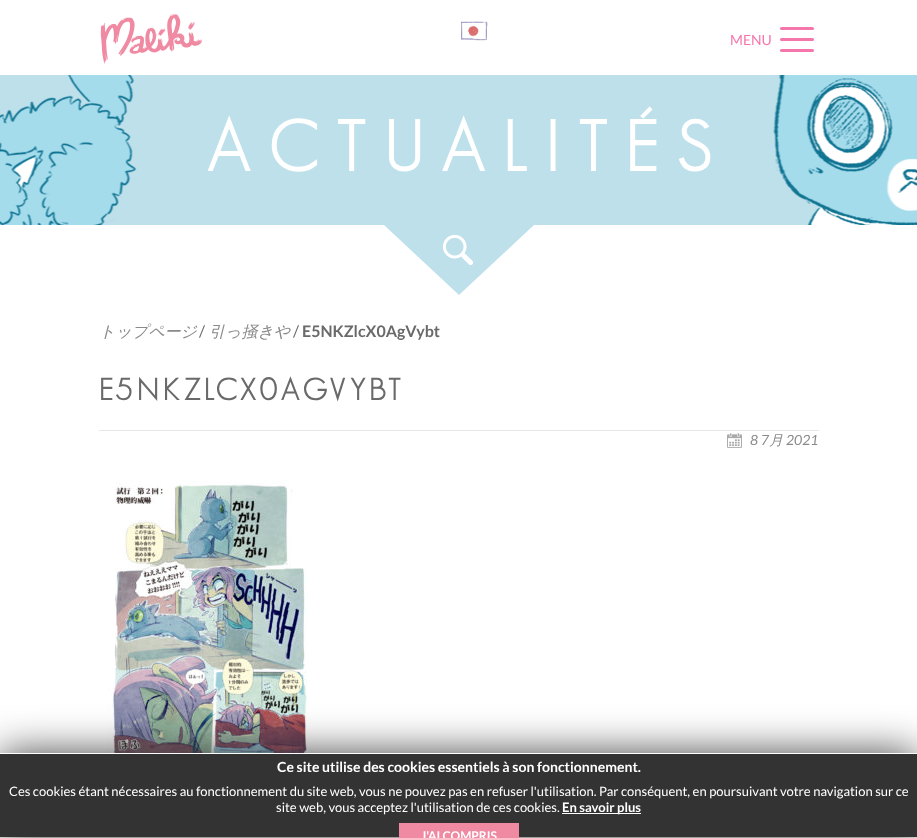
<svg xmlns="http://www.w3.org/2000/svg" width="917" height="838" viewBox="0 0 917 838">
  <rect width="100%" height="100%" fill="#fff"/>
  <image x="461" y="21" width="27" height="20" href="img/1.png"/>
  <image x="100" y="14" width="103" height="50" href="img/2.png"/>
  <rect x="780" y="27" width="34" height="3" rx="1.5" fill="#f576ab"/>
  <rect x="780" y="38" width="34" height="3" rx="1.5" fill="#f576ab"/>
  <rect x="780" y="49" width="34" height="3" rx="1.5" fill="#f576ab"/>
  <path d="M0 75h824v150H0z" fill="#bde0eb"/>
  <image x="0" y="75" width="917" height="150" href="img/3.png"/>
  <path d="M384 225H534L459 295Z" fill="#bde0eb"/>
  <image x="442" y="234" width="32" height="32" href="img/4.png"/>
  <path d="M99 430h720v1H99z" fill="#e8e8e8"/>
  <image x="727" y="433" width="15" height="15" href="img/5.png"/>
  <image x="107" y="480" width="200" height="273" href="img/6.png"/>
  <path d="M0 753h917v85H0z" fill="#444" filter="blur(20px)"/>
  <path d="M0 754h917v83H0z" fill="#333"/>
  <path d="M0 753h917v1H0z" fill="#fff"/>
  <path d="M562 813h79v1H562z" fill="#fff"/>
  <path d="M399 823h120v15H399z" fill="#f08aa3"/>
  <text x="730" y="45" font-family="Lato" font-size="14" fill="#f576ab">MENU</text>
  <text x="206" y="171" font-family="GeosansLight" font-size="70" font-weight="bold" fill="#fff">A C T U A L I T É S</text>
  <text x="99" y="337" font-family="WenQuanYi Zen Hei" font-size="16" font-weight="500" font-style="italic" fill="#8a8a8a">トップページ</text>
  <text x="199" y="337" font-family="Lato" font-size="16" fill="#6a6a6a">/</text>
  <text x="209" y="337" font-family="WenQuanYi Zen Hei" font-size="16" font-weight="500" font-style="italic" fill="#8a8a8a">引っ掻きや</text>
  <text x="293" y="337" font-family="Lato" font-size="16" fill="#6a6a6a">/</text>
  <text x="302" y="337" font-family="Lato" font-size="16" font-weight="bold" fill="#6a6a6a">E5NKZlcX0AgVybt</text>
  <text x="99" y="400" font-family="GeosansLight" font-size="30" font-weight="bold" letter-spacing="5" fill="#6a6a6a">E5NKZLCX0AGVYBT</text>
  <text x="750" y="445" font-family="Lato" font-size="14" font-style="italic" fill="#8a8a8a">8 7</text>
  <text x="769" y="445" font-family="WenQuanYi Zen Hei" font-size="14" font-weight="500" font-style="italic" fill="#8a8a8a">月</text>
  <text x="786" y="445" font-family="Lato" font-size="14" font-style="italic" fill="#8a8a8a">2021</text>
  <text x="277" y="772" font-family="Lato" font-size="14" font-weight="bold" fill="#fff">Ce site utilise des cookies essentiels à son fonctionnement.</text>
  <g font-family="Lato" font-size="13" fill="#fff">
    <text x="9" y="796">Ces cookies étant nécessaires au fonctionnement du site web, vous ne pouvez pas en refuser l'utilisation. Par conséquent, en poursuivant votre navigation sur ce</text>
    <text x="276" y="812">site web, vous acceptez l'utilisation de ces cookies.</text>
  </g>
  <text x="562" y="812" font-family="Lato" font-size="13" font-weight="bold" fill="#fff">En savoir plus</text>
  <text x="421" y="840" font-family="Lato" font-size="12" font-weight="bold" fill="#fff">J'AI COMPRIS</text>
</svg>
